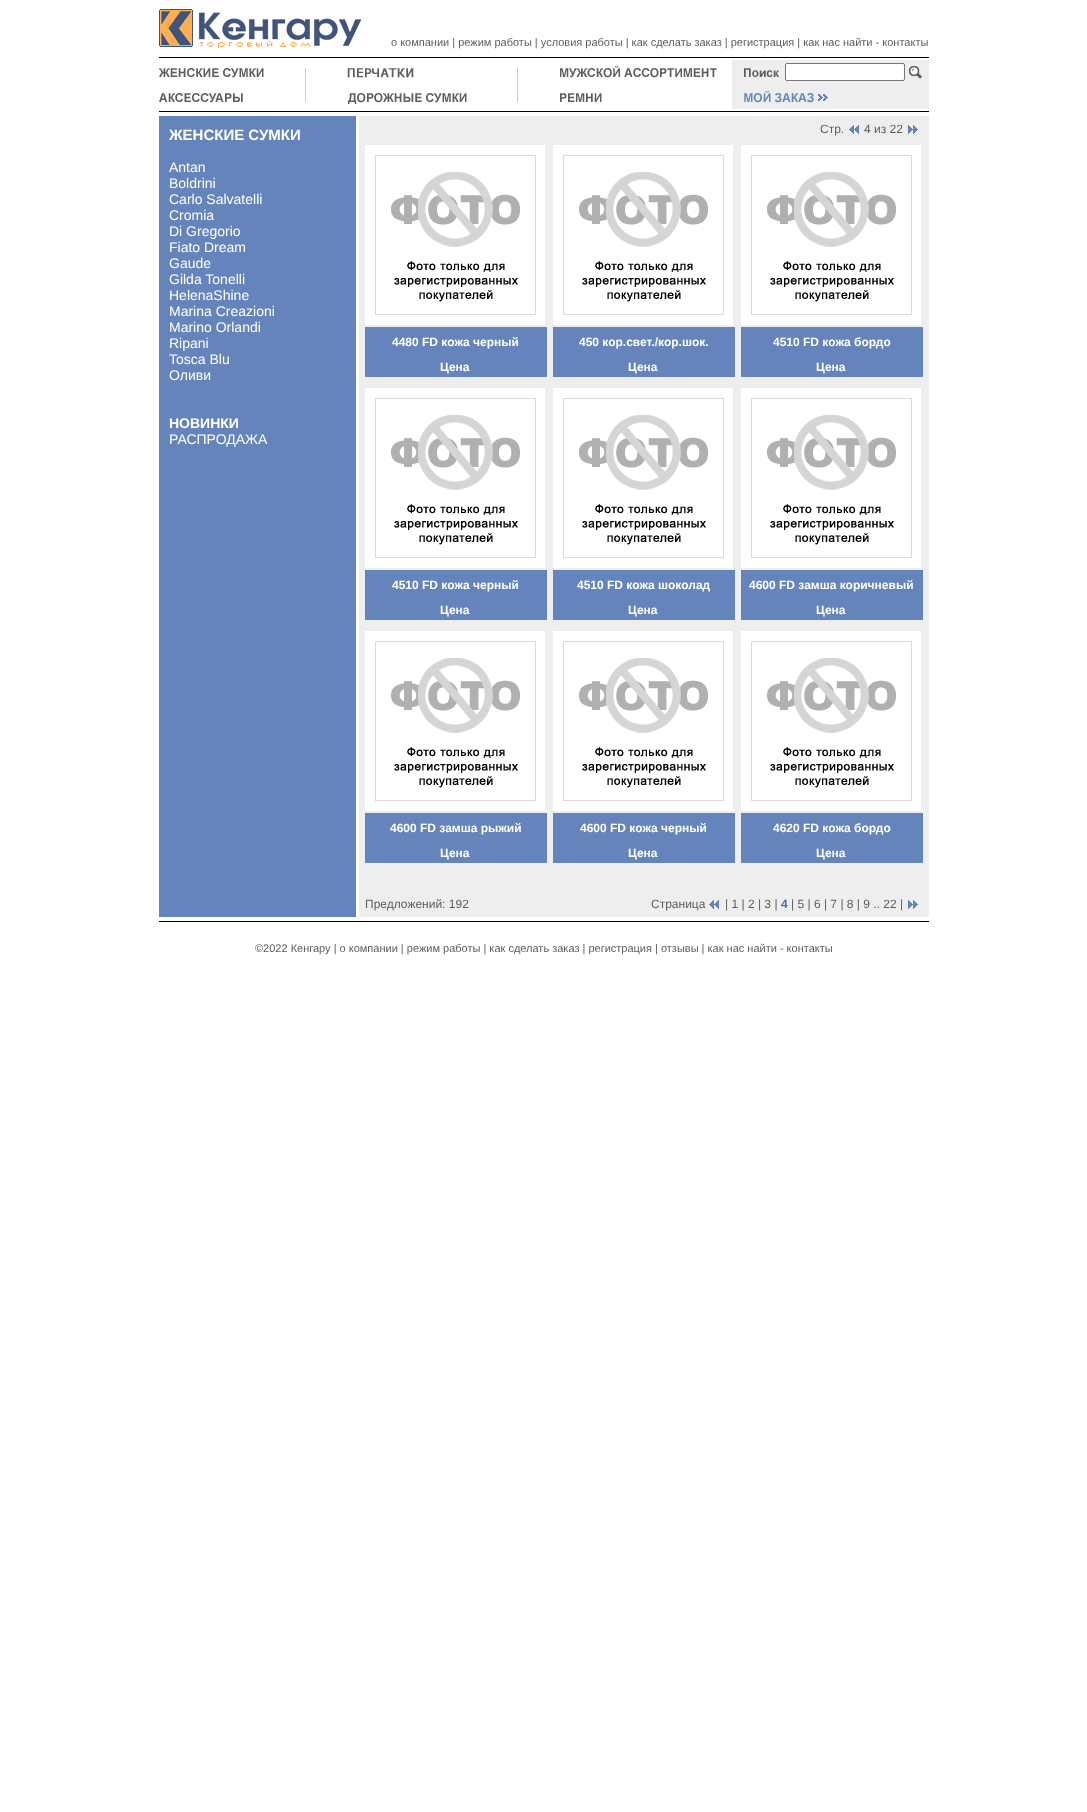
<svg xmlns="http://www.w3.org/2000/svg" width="1087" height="1812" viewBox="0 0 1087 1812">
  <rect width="100%" height="100%" fill="#fff"/>
  <image x="159" y="9" width="202" height="39" href="img/1.png"/>
  <path d="M159 57h770v1H159z" fill="#000"/>
  <image x="159" y="68" width="105" height="10" href="img/2.png"/>
  <path d="M305 68h1v34H305z" fill="#ccc"/>
  <image x="347" y="68" width="67" height="10" href="img/3.png"/>
  <path d="M517 68h1v34H517z" fill="#ccc"/>
  <image x="560" y="66" width="157" height="12" href="img/4.png"/>
  <path d="M732 60h197v49H732z" fill="#eee"/>
  <image x="744" y="68" width="35" height="9" href="img/5.png"/>
  <rect x="785.5" y="63.5" width="119" height="17" rx="1.5" fill="#fff" stroke="#767676"/>
  <image x="909" y="66" width="13" height="13" href="img/6.png"/>
  <image x="159" y="93" width="84" height="10" href="img/7.png"/>
  <image x="348" y="93" width="119" height="11" href="img/8.png"/>
  <image x="560" y="93" width="42" height="9" href="img/9.png"/>
  <image x="744" y="91" width="84" height="12" href="img/10.png"/>
  <path d="M159 111h770v1H159z" fill="#000"/>
  <path d="M159 116h197v801H159z" fill="#6584bc"/>
  <path d="M359 116h570v801H359z" fill="#eee"/>
  <image x="849" y="125" width="10" height="9" href="img/11.png"/>
  <image x="908" y="125" width="10" height="9" href="img/12.png"/>
  <image x="365" y="145" width="180" height="180" href="img/13.png"/>
  <path d="M365 327h182v50H365z" fill="#6584bc"/>
  <image x="553" y="145" width="180" height="180" href="img/13.png"/>
  <path d="M553 327h182v50H553z" fill="#6584bc"/>
  <image x="741" y="145" width="180" height="180" href="img/13.png"/>
  <path d="M741 327h182v50H741z" fill="#6584bc"/>
  <image x="365" y="388" width="180" height="180" href="img/13.png"/>
  <path d="M365 570h182v50H365z" fill="#6584bc"/>
  <image x="553" y="388" width="180" height="180" href="img/13.png"/>
  <path d="M553 570h182v50H553z" fill="#6584bc"/>
  <image x="741" y="388" width="180" height="180" href="img/13.png"/>
  <path d="M741 570h182v50H741z" fill="#6584bc"/>
  <image x="365" y="631" width="180" height="180" href="img/13.png"/>
  <path d="M365 813h182v50H365z" fill="#6584bc"/>
  <image x="553" y="631" width="180" height="180" href="img/13.png"/>
  <path d="M553 813h182v50H553z" fill="#6584bc"/>
  <image x="741" y="631" width="180" height="180" href="img/13.png"/>
  <path d="M741 813h182v50H741z" fill="#6584bc"/>
  <image x="709" y="900" width="10" height="9" href="img/11.png"/>
  <image x="908" y="900" width="10" height="9" href="img/12.png"/>
  <path d="M159 921h770v1H159z" fill="#000"/>
  <text x="391" y="46" font-family="Liberation Sans" font-size="11" fill="#5d5d5d">о компании | режим работы | условия работы | как сделать заказ | регистрация | как нас найти - контакты</text>
  <text x="169" y="140" font-family="Liberation Sans" font-size="15" font-weight="bold" fill="#fff">ЖЕНСКИЕ СУМКИ</text>
  <g font-family="Liberation Sans" font-size="14" fill="#fff">
    <text x="169" y="172">Antan</text>
    <text x="169" y="188">Boldrini</text>
    <text x="169" y="204">Carlo Salvatelli</text>
    <text x="169" y="220">Cromia</text>
    <text x="169" y="236">Di Gregorio</text>
    <text x="169" y="252">Fiato Dream</text>
    <text x="169" y="268">Gaude</text>
    <text x="169" y="284">Gilda Tonelli</text>
    <text x="169" y="300">HelenaShine</text>
    <text x="169" y="316">Marina Creazioni</text>
    <text x="169" y="332">Marino Orlandi</text>
    <text x="169" y="348">Ripani</text>
    <text x="169" y="364">Tosca Blu</text>
    <text x="169" y="380">Оливи</text>
  </g>
  <text x="169" y="428" font-family="Liberation Sans" font-size="14" font-weight="bold" fill="#fff">НОВИНКИ</text>
  <text x="169" y="444" font-family="Liberation Sans" font-size="14" fill="#fff">РАСПРОДАЖА</text>
  <g font-family="Liberation Sans" font-size="12" fill="#5d5d5d">
    <text x="820" y="133">Стр.</text>
    <text x="864" y="133">4 из 22</text>
  </g>
  <g font-family="Liberation Sans" font-size="12" font-weight="bold" fill="#fff">
    <text x="392" y="346">4480 FD кожа черный</text>
    <text x="440" y="371">Цена</text>
    <text x="579" y="346">450 кор.свет./кор.шок.</text>
    <text x="628" y="371">Цена</text>
    <text x="773" y="346">4510 FD кожа бордо</text>
    <text x="816" y="371">Цена</text>
    <text x="392" y="589">4510 FD кожа черный</text>
    <text x="440" y="614">Цена</text>
    <text x="577" y="589">4510 FD кожа шоколад</text>
    <text x="628" y="614">Цена</text>
    <text x="749" y="589">4600 FD замша коричневый</text>
    <text x="816" y="614">Цена</text>
    <text x="390" y="832">4600 FD замша рыжий</text>
    <text x="440" y="857">Цена</text>
    <text x="580" y="832">4600 FD кожа черный</text>
    <text x="628" y="857">Цена</text>
    <text x="773" y="832">4620 FD кожа бордо</text>
    <text x="816" y="857">Цена</text>
  </g>
  <g font-family="Liberation Sans" font-size="12" fill="#5d5d5d">
    <text x="365" y="908">Предложений: 192</text>
    <text x="651" y="908">Страница</text>
    <text x="725" y="908">| 1 | 2 | 3 |</text>
  </g>
  <text x="781" y="908" font-family="Liberation Sans" font-size="12" font-weight="bold" fill="#4a6caa">4</text>
  <text x="791" y="908" font-family="Liberation Sans" font-size="12" fill="#5d5d5d">| 5 | 6 | 7 | 8 | 9 .. 22 |</text>
  <text x="255" y="952" font-family="Liberation Sans" font-size="11" fill="#5d5d5d">©2022 Кенгару | о компании | режим работы | как сделать заказ | регистрация | отзывы | как нас найти - контакты</text>
</svg>
